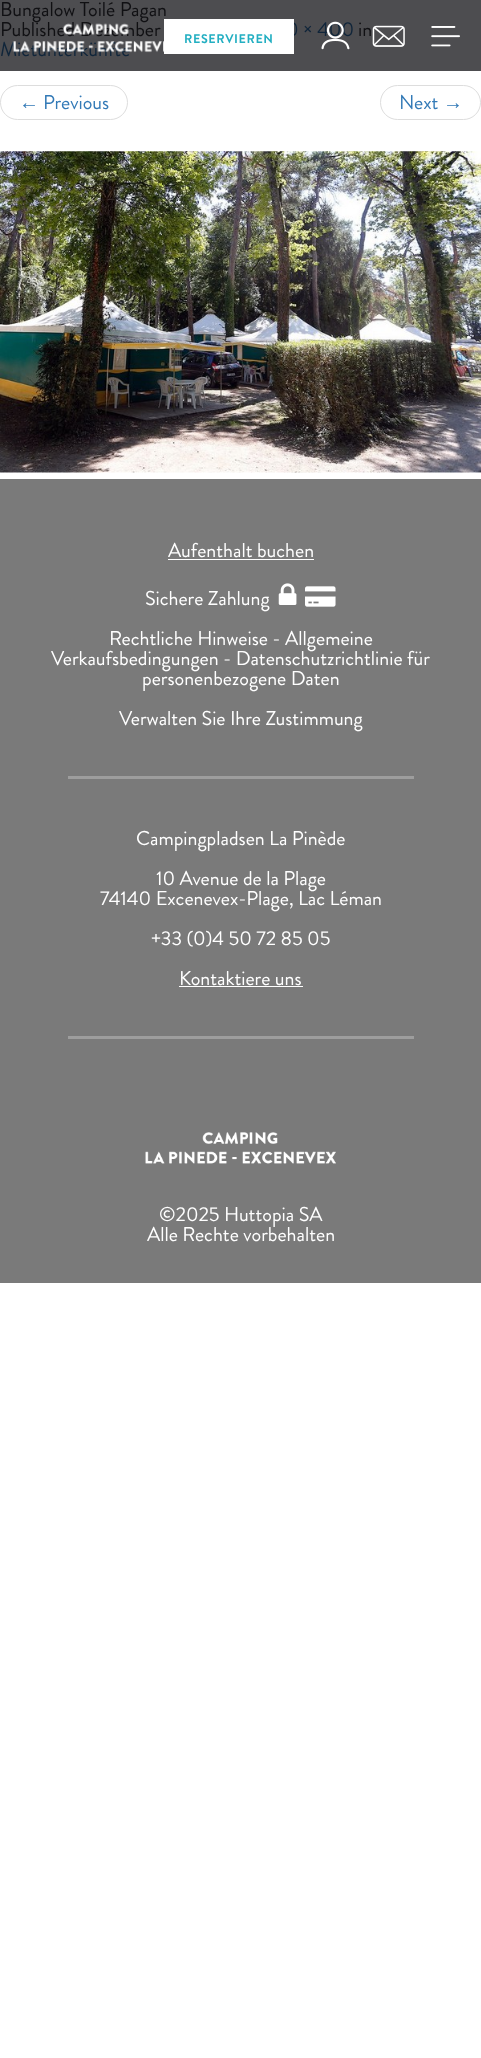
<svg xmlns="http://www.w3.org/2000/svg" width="481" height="2058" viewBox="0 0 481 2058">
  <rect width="100%" height="100%" fill="#fff"/>
  <path d="M0 0h481v71H0z" fill="#4d4d50"/>
  <rect x="0.5" y="85.5" width="127" height="34" rx="17" fill="none" stroke="#ddd"/>
  <rect x="380.5" y="85.5" width="100" height="34" rx="17" fill="none" stroke="#ddd"/>
  <image x="0" y="151" width="481" height="322" href="img/1.png"/>
  <image x="372" y="25" width="33" height="22" href="img/4.png"/>
  <image x="431" y="26" width="29" height="21" href="img/5.png"/>
  <path d="M0 479h481v804H0z" fill="#7a7a7a"/>
  <path d="M168 559h146v1H168z" fill="#fff"/>
  <image x="278" y="583" width="19" height="22" href="img/6.png"/>
  <image x="305" y="586" width="31" height="21" href="img/7.png"/>
  <path d="M68 776h346v3H68z" fill="#9d9d9d"/>
  <path d="M179 986h124v1H179z" fill="#fff"/>
  <path d="M68 1036h346v3H68z" fill="#9d9d9d"/>
  <image x="145" y="1132" width="191" height="32" href="img/8.png"/>
  <g font-family="Brandon Grotesque" font-size="20" fill="#101013">
    <text x="0" y="16">Bungalow Toilé Pagan</text>
    <text x="0" y="36">Published Dezember</text>
  </g>
  <text x="286" y="36" font-family="Brandon Grotesque" font-size="20" fill="#10253a">0 × 400</text>
  <text x="358" y="36" font-family="Brandon Grotesque" font-size="20" fill="#101013">in</text>
  <text x="0" y="56" font-family="Brandon Grotesque" font-size="20" fill="#10253a">Mietunterkünfte</text>
  <text x="19" y="109" font-family="Liberation Serif" font-size="20" fill="#337ab7">←</text>
  <g font-family="Brandon Grotesque" font-size="20" fill="#337ab7">
    <text x="43" y="109">Previous</text>
    <text x="399" y="109">Next</text>
  </g>
  <text x="443" y="109" font-family="Liberation Serif" font-size="20" fill="#337ab7">→</text>
  <image x="12" y="23" width="152" height="30" href="img/2.png"/>
  <path d="M164 19h130v35H164z" fill="#fff"/>
  <text x="184" y="43" font-family="Brandon Grotesque" font-size="12.5" font-weight="bold" letter-spacing="0.6" fill="#23afc2">RESERVIEREN</text>
  <image x="321" y="21" width="29" height="29" href="img/3.png"/>
  <g font-family="Brandon Grotesque" font-size="20" fill="#fff">
    <text x="168" y="557">Aufenthalt buchen</text>
    <text x="145" y="605">Sichere Zahlung</text>
    <text x="109" y="645">Rechtliche Hinweise - Allgemeine</text>
    <text x="51" y="665">Verkaufsbedingungen - Datenschutzrichtlinie für</text>
    <text x="142" y="685">personenbezogene Daten</text>
    <text x="119" y="725">Verwalten Sie Ihre Zustimmung</text>
    <text x="136" y="845">Campingpladsen La Pinède</text>
    <text x="156" y="885">10 Avenue de la Plage</text>
    <text x="100" y="905">74140 Excenevex-Plage, Lac Léman</text>
    <text x="151" y="945">+33 (0)4 50 72 85 05</text>
    <text x="179" y="985">Kontaktiere uns</text>
    <text x="159" y="1221">©2025 Huttopia SA</text>
    <text x="147" y="1241">Alle Rechte vorbehalten</text>
  </g>
</svg>
